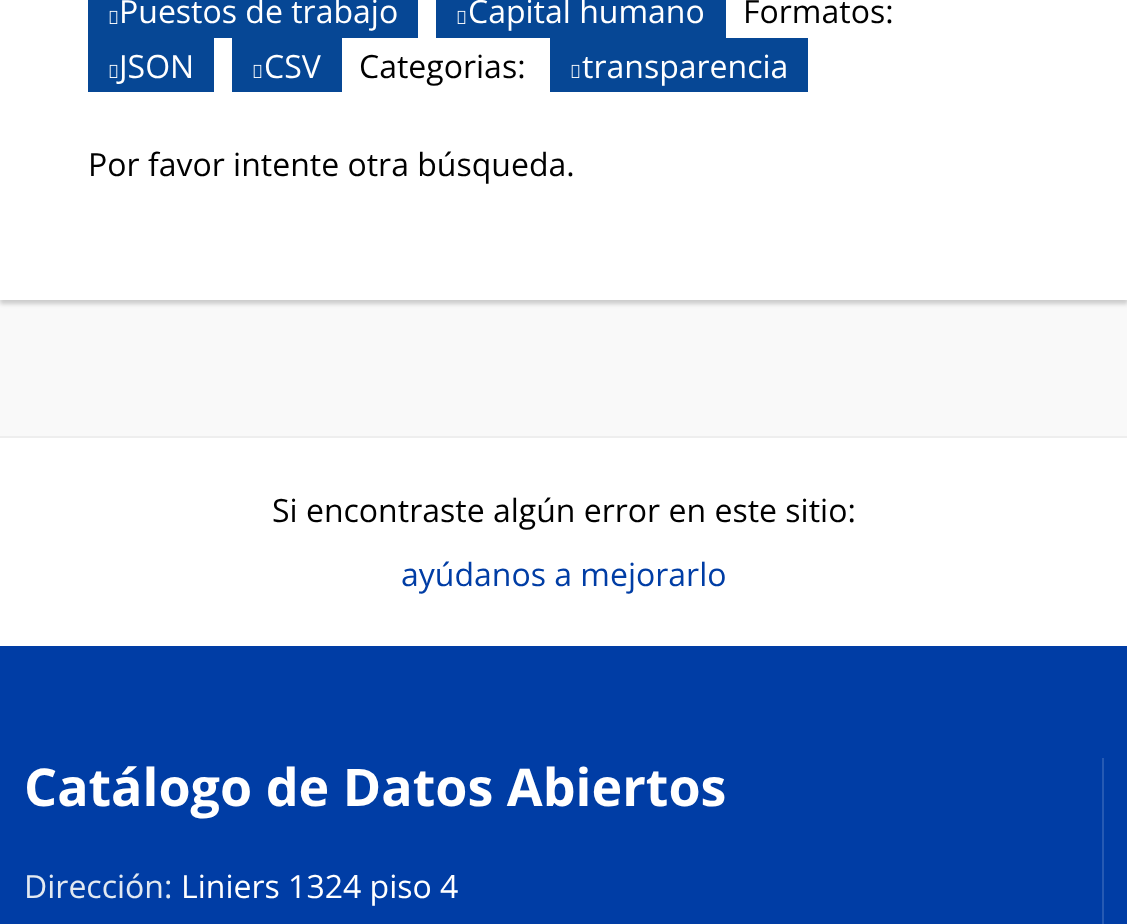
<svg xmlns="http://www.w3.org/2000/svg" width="1127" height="924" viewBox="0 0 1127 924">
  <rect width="100%" height="100%" fill="#f9f9f9"/>
  <path d="M0 -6h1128v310H0z" fill="#0000002e" filter="blur(2px)"/>
  <path d="M0 0h1127v300H0z" fill="#fff"/>
  <path d="M88 0h330v38H88z" fill="#064795"/>
  <image x="109" y="10" width="9" height="14" href="img/1.png"/>
  <path d="M436 0h290v38H436z" fill="#064795"/>
  <image x="457" y="10" width="9" height="14" href="img/1.png"/>
  <path d="M88 38h126v54H88z" fill="#064795"/>
  <image x="109" y="64" width="9" height="14" href="img/1.png"/>
  <path d="M232 38h110v54H232z" fill="#064795"/>
  <image x="253" y="64" width="9" height="14" href="img/1.png"/>
  <path d="M550 38h258v54H550z" fill="#064795"/>
  <image x="571" y="64" width="9" height="14" href="img/1.png"/>
  <path d="M0 438h1127v208H0z" fill="#fff"/>
  <path d="M0 436h1127v2H0z" fill="#eee"/>
  <path d="M0 646h1127v278H0z" fill="#003da5"/>
  <path d="M1102 758h2v166H1102z" fill="#265ab3"/>
  <g font-family="Open Sans" font-size="32" fill="#fff">
    <text x="119" y="23">Puestos de trabajo</text>
    <text x="468" y="23">Capital humano</text>
  </g>
  <text x="743" y="23" font-family="Open Sans" font-size="32" fill="#000">Formatos:</text>
  <g font-family="Open Sans" font-size="32" fill="#fff">
    <text x="119" y="78">JSON</text>
    <text x="264" y="78">CSV</text>
  </g>
  <text x="359" y="78" font-family="Open Sans" font-size="32" fill="#000">Categorias:</text>
  <text x="582" y="78" font-family="Open Sans" font-size="32" fill="#fff">transparencia</text>
  <g font-family="Open Sans" font-size="32" fill="#000">
    <text x="88" y="176">Por favor intente otra búsqueda.</text>
    <text x="272" y="522">Si encontraste algún error en este sitio:</text>
  </g>
  <text x="401" y="586" font-family="Open Sans" font-size="32" fill="#003da5">ayúdanos a mejorarlo</text>
  <text x="24" y="806" font-family="Open Sans" font-size="52" font-weight="bold" fill="#fff">Catálogo de Datos Abiertos</text>
  <text x="24" y="898" font-family="Open Sans" font-size="32" fill="#e2e9f1">Dirección:</text>
  <text x="181" y="898" font-family="Open Sans" font-size="32" fill="#fff">Liniers 1324 piso 4</text>
</svg>
